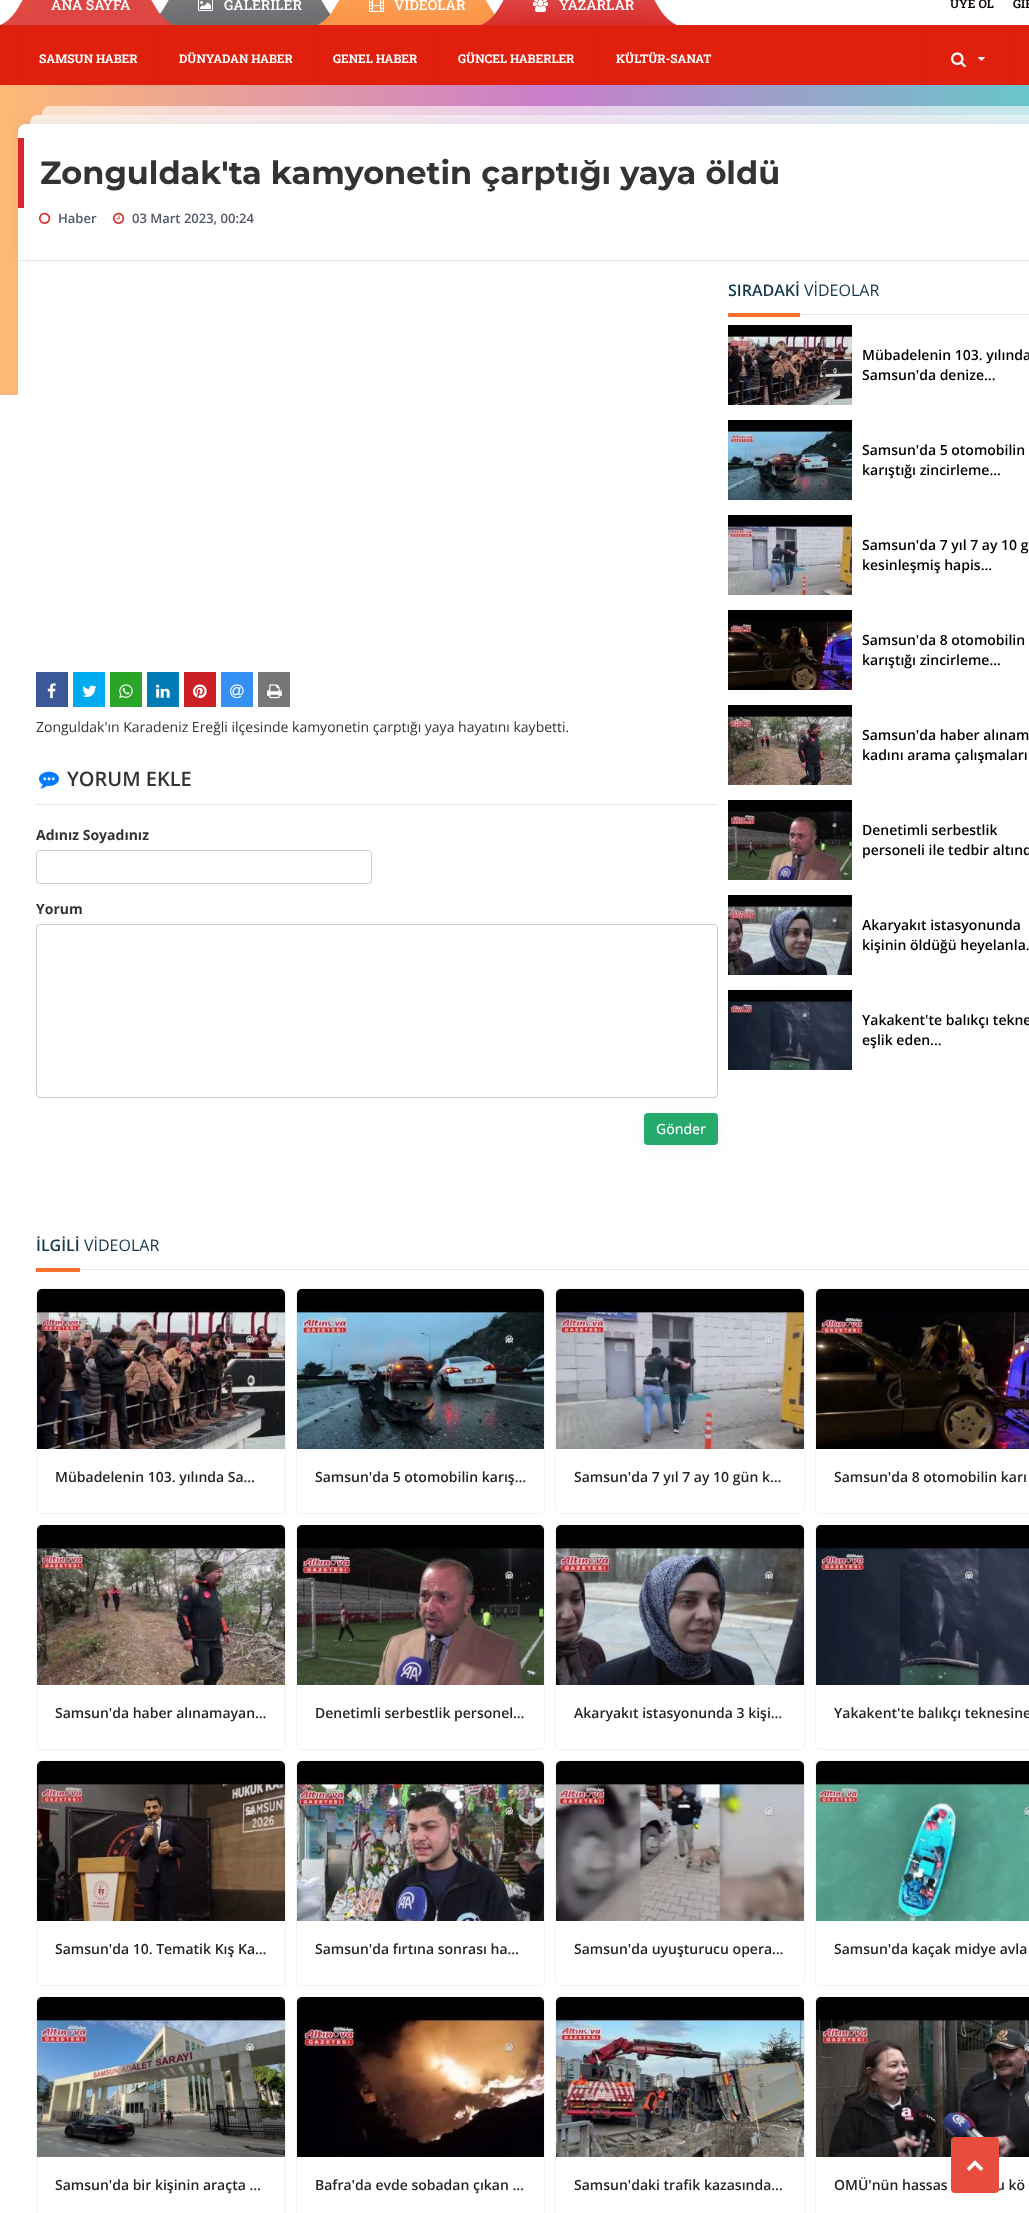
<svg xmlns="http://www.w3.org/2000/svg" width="1029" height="2213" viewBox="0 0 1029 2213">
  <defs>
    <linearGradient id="g1" gradientUnits="userSpaceOnUse" x1="249" y1="-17" x2="249" y2="25"><stop offset="0" stop-color="#7f8083"/><stop offset="1" stop-color="#6c6c6f"/></linearGradient>
    <linearGradient id="g2" gradientUnits="userSpaceOnUse" x1="417" y1="-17" x2="417" y2="25"><stop offset="0" stop-color="#fca658"/><stop offset="1" stop-color="#fb9246"/></linearGradient>
    <linearGradient id="g3" gradientUnits="userSpaceOnUse" x1="583" y1="-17" x2="583" y2="25"><stop offset="0" stop-color="#e05454"/><stop offset="1" stop-color="#d92c2b"/></linearGradient>
    <linearGradient id="g4" gradientUnits="userSpaceOnUse" x1="0" y1="95" x2="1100" y2="95"><stop offset="0" stop-color="#feb875"/><stop offset="0.5" stop-color="#c97eca"/><stop offset="1" stop-color="#5bcfcb"/></linearGradient>
    <linearGradient id="g5" gradientUnits="userSpaceOnUse" x1="0" y1="245" x2="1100" y2="245"><stop offset="0" stop-color="#feb875"/><stop offset="0.5" stop-color="#c97eca"/><stop offset="1" stop-color="#5bcfcb"/></linearGradient>
  </defs>
  <rect width="100%" height="100%" fill="#fff"/>
  <image x="0" y="0" width="33" height="25" href="img/1.png"/>
  <image x="159" y="0" width="20" height="25" href="img/3.png"/>
  <image x="149" y="0" width="25" height="25" href="img/2.png"/>
  <path d="M55-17H127C139.5-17 150-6.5 150 6V25H32V6C32-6.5 42.5-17 55-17Z" fill="#de4645"/>
  <image x="319" y="0" width="12" height="24" href="img/5.png"/>
  <path d="M201-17H297C309.5-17 320-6.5 320 6V25H178V6C178-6.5 188.5-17 201-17Z" fill="url(#g1)"/>
  <image x="198" y="0" width="15" height="11" href="img/4.png"/>
  <image x="317" y="0" width="32" height="25" href="img/6.png"/>
  <image x="484" y="0" width="11" height="23" href="img/8.png"/>
  <path d="M371-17H462C474.5-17 485-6.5 485 6V25H348V6C348-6.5 358.5-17 371-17Z" fill="url(#g2)"/>
  <image x="369" y="0" width="15" height="12" href="img/7.png"/>
  <image x="481" y="0" width="33" height="25" href="img/9.png"/>
  <image x="652" y="0" width="25" height="25" href="img/11.png"/>
  <path d="M536-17H630C642.5-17 653-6.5 653 6V25H513V6C513-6.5 523.5-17 536-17Z" fill="url(#g3)"/>
  <image x="533" y="0" width="15" height="12" href="img/10.png"/>
  <path d="M0 28h1029v57H0z" fill="#e01f0c"/>
  <path d="M0 25h1029v3H0z" fill="#da2211"/>
  <path d="M18 28h1v57H18z" fill="#d71e0c"/>
  <path d="M158 28h1v57H158z" fill="#d71e0c"/>
  <path d="M312 28h1v57H312z" fill="#d71e0c"/>
  <path d="M437 28h1v57H437z" fill="#d71e0c"/>
  <path d="M595 28h1v57H595z" fill="#d71e0c"/>
  <path d="M927 28h1v57H927z" fill="#d71e0c"/>
  <image x="951" y="52" width="15" height="16" href="img/12.png"/>
  <image x="978" y="57" width="7" height="4" href="img/13.png"/>
  <path d="M1014 28h1v57H1014z" fill="#d71e0c"/>
  <path d="M0 85h1029v10H0z" fill="url(#g4)"/>
  <path d="M0 95h1029v300H0z" fill="url(#g5)"/>
  <path d="M50 106H1029C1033.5 106 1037 109.5 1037 114V115H42V114C42 109.5 45.5 106 50 106Z" fill="#ffffff99"/>
  <path d="M38 115H1029C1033.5 115 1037 118.5 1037 123V124H30V123C30 118.5 33.5 115 38 115Z" fill="#ffffffcc"/>
  <path d="M18 261H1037V1184C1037 1188.5 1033.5 1192 1029 1192H26C21.5 1192 18 1188.5 18 1184Z" fill="#fff"/>
  <rect x="18" y="120" width="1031" height="137" rx="8" fill="#6e839814" filter="blur(4px)"/>
  <path d="M26 124H1029C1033.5 124 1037 127.5 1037 132V261H18V132C18 127.5 21.5 124 26 124Z" fill="#fff"/>
  <path d="M18 260h1011v1H18z" fill="#e6e6e6"/>
  <path d="M18 138h6v70H18z" fill="#d82726"/>
  <image x="39" y="212" width="12" height="12" href="img/14.png"/>
  <image x="113" y="212" width="12" height="12" href="img/15.png"/>
  <path d="M36 672h32v35H36z" fill="#3b5998"/>
  <image x="47" y="683" width="9" height="16" href="img/16.png"/>
  <path d="M73 672h32v35H73z" fill="#00aced"/>
  <image x="82" y="685" width="15" height="12" href="img/17.png"/>
  <path d="M110 672h32v35H110z" fill="#29a628"/>
  <image x="119" y="684" width="14" height="15" href="img/18.png"/>
  <path d="M147 672h32v35H147z" fill="#007bb6"/>
  <image x="156" y="684" width="14" height="14" href="img/19.png"/>
  <path d="M184 672h32v35H184z" fill="#cb2027"/>
  <image x="193" y="684" width="14" height="15" href="img/20.png"/>
  <path d="M221 672h32v35H221z" fill="#3490f3"/>
  <image x="230" y="684" width="14" height="15" href="img/21.png"/>
  <path d="M258 672h32v35H258z" fill="#777"/>
  <image x="267" y="684" width="15" height="15" href="img/22.png"/>
  <path d="M36 804h682v1H36z" fill="#e6e6e6"/>
  <image x="39" y="771" width="20" height="18" href="img/23.png"/>
  <rect x="36.5" y="850.5" width="335" height="33" rx="3.5" fill="none" stroke="#ccc"/>
  <rect x="36.5" y="924.5" width="681" height="173" rx="3.5" fill="none" stroke="#ccc"/>
  <rect x="644" y="1116" width="74" height="32" rx="4" fill="#eef3f7" filter="blur(6px)"/>
  <rect x="644" y="1113" width="74" height="32" rx="4" fill="#26aa6c"/>
  <path d="M800 314h229v1H800z" fill="#e6e6e6"/>
  <path d="M728 313h72v4H728z" fill="#fd722f"/>
  <image x="728" y="325" width="124" height="80" href="img/24.png"/>
  <image x="728" y="420" width="124" height="80" href="img/25.png"/>
  <image x="728" y="515" width="124" height="80" href="img/26.png"/>
  <image x="728" y="610" width="124" height="80" href="img/27.png"/>
  <image x="728" y="705" width="124" height="80" href="img/28.png"/>
  <image x="728" y="800" width="124" height="80" href="img/29.png"/>
  <image x="728" y="895" width="124" height="80" href="img/30.png"/>
  <image x="728" y="990" width="124" height="80" href="img/31.png"/>
  <path d="M80 1269h949v1H80z" fill="#e6e6e6"/>
  <path d="M36 1268h44v4H36z" fill="#fd722f"/>
  <rect x="36.5" y="1288.5" width="249" height="225" rx="4.5" fill="none" stroke="#eef3f7"/>
  <image x="37" y="1289" width="248" height="160" href="img/32.png"/>
  <rect x="296.5" y="1288.5" width="248" height="225" rx="4.5" fill="none" stroke="#eef3f7"/>
  <image x="297" y="1289" width="247" height="160" href="img/33.png"/>
  <rect x="555.5" y="1288.5" width="249" height="225" rx="4.5" fill="none" stroke="#eef3f7"/>
  <image x="556" y="1289" width="248" height="160" href="img/34.png"/>
  <rect x="815.5" y="1288.5" width="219" height="225" rx="4.5" fill="none" stroke="#eef3f7"/>
  <image x="816" y="1289" width="213" height="160" href="img/35.png"/>
  <rect x="36.5" y="1524.5" width="249" height="225" rx="4.5" fill="none" stroke="#eef3f7"/>
  <image x="37" y="1525" width="248" height="160" href="img/36.png"/>
  <rect x="296.5" y="1524.5" width="248" height="225" rx="4.5" fill="none" stroke="#eef3f7"/>
  <image x="297" y="1525" width="247" height="160" href="img/37.png"/>
  <rect x="555.5" y="1524.5" width="249" height="225" rx="4.5" fill="none" stroke="#eef3f7"/>
  <image x="556" y="1525" width="248" height="160" href="img/38.png"/>
  <rect x="815.5" y="1524.5" width="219" height="225" rx="4.5" fill="none" stroke="#eef3f7"/>
  <image x="816" y="1525" width="213" height="160" href="img/39.png"/>
  <rect x="36.5" y="1760.5" width="249" height="225" rx="4.5" fill="none" stroke="#eef3f7"/>
  <image x="37" y="1761" width="248" height="160" href="img/40.png"/>
  <rect x="296.5" y="1760.5" width="248" height="225" rx="4.5" fill="none" stroke="#eef3f7"/>
  <image x="297" y="1761" width="247" height="160" href="img/41.png"/>
  <rect x="555.5" y="1760.5" width="249" height="225" rx="4.5" fill="none" stroke="#eef3f7"/>
  <image x="556" y="1761" width="248" height="160" href="img/42.png"/>
  <rect x="815.5" y="1760.5" width="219" height="225" rx="4.5" fill="none" stroke="#eef3f7"/>
  <image x="816" y="1761" width="213" height="160" href="img/43.png"/>
  <rect x="36.5" y="1996.5" width="249" height="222" rx="4.5" fill="none" stroke="#eef3f7"/>
  <image x="37" y="1997" width="248" height="160" href="img/44.png"/>
  <rect x="296.5" y="1996.5" width="248" height="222" rx="4.5" fill="none" stroke="#eef3f7"/>
  <image x="297" y="1997" width="247" height="160" href="img/45.png"/>
  <rect x="555.5" y="1996.5" width="249" height="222" rx="4.5" fill="none" stroke="#eef3f7"/>
  <image x="556" y="1997" width="248" height="160" href="img/46.png"/>
  <rect x="815.5" y="1996.5" width="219" height="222" rx="4.5" fill="none" stroke="#eef3f7"/>
  <image x="816" y="1997" width="213" height="160" href="img/47.png"/>
  <g font-family="Roboto Slab" font-size="14" font-weight="500" fill="#fff">
    <text x="51" y="10">ANA SAYFA</text>
    <text x="224" y="10">GALERİLER</text>
    <text x="394" y="10">VİDEOLAR</text>
    <text x="559" y="10">YAZARLAR</text>
  </g>
  <g font-family="Roboto Slab" font-size="12" font-weight="600" fill="#090000">
    <text x="950" y="8">ÜYE OL</text>
    <text x="1013" y="8">GİR</text>
  </g>
  <g font-family="Roboto Slab" font-size="12" font-weight="bold" fill="#fff">
    <text x="39" y="63">SAMSUN HABER</text>
    <text x="179" y="63">DÜNYADAN HABER</text>
    <text x="333" y="63">GENEL HABER</text>
    <text x="458" y="63">GÜNCEL HABERLER</text>
    <text x="616" y="63">KÜLTÜR-SANAT</text>
  </g>
  <text x="40" y="184" font-family="Montserrat" font-size="32" font-weight="bold" fill="#333">Zonguldak'ta kamyonetin çarptığı yaya öldü</text>
  <g font-family="Open Sans" font-size="13" font-weight="600" fill="#515669">
    <text x="58" y="223">Haber</text>
    <text x="132" y="223">03 Mart 2023, 00:24</text>
  </g>
  <text x="36" y="732" font-family="Open Sans" font-size="14" fill="#333">Zonguldak'ın Karadeniz Ereğli ilçesinde kamyonetin çarptığı yaya hayatını kaybetti.</text>
  <text x="67" y="786" font-family="Open Sans" font-size="20" font-weight="600" fill="#333">YORUM EKLE</text>
  <g font-family="Open Sans" font-size="14" font-weight="bold" fill="#333">
    <text x="36" y="840">Adınız Soyadınız</text>
    <text x="36" y="914">Yorum</text>
  </g>
  <text x="656" y="1134" font-family="Open Sans" font-size="14" font-weight="500" fill="#fff">Gönder</text>
  <text x="728" y="296" font-family="Open Sans" font-size="16" font-weight="600" fill="#13394e">SIRADAKİ</text>
  <text x="804" y="296" font-family="Open Sans" font-size="16" fill="#13394e">VİDEOLAR</text>
  <g font-family="Open Sans" font-size="14" font-weight="600" fill="#000">
    <text x="862" y="360">Mübadelenin 103. yılında</text>
    <text x="862" y="380">Samsun'da denize...</text>
    <text x="862" y="455">Samsun'da 5 otomobilin</text>
    <text x="862" y="475">karıştığı zincirleme...</text>
    <text x="862" y="550">Samsun'da 7 yıl 7 ay 10 g</text>
    <text x="862" y="570">kesinleşmiş hapis...</text>
    <text x="862" y="645">Samsun'da 8 otomobilin</text>
    <text x="862" y="665">karıştığı zincirleme...</text>
    <text x="862" y="740">Samsun'da haber alınam</text>
    <text x="862" y="760">kadını arama çalışmaları</text>
    <text x="862" y="835">Denetimli serbestlik</text>
    <text x="862" y="855">personeli ile tedbir altınd</text>
    <text x="862" y="930">Akaryakıt istasyonunda</text>
    <text x="862" y="950">kişinin öldüğü heyelanla.</text>
    <text x="862" y="1025">Yakakent'te balıkçı tekne</text>
    <text x="862" y="1045">eşlik eden...</text>
  </g>
  <text x="36" y="1251" font-family="Open Sans" font-size="16" font-weight="600" fill="#13394e">İLGİLİ</text>
  <text x="84" y="1251" font-family="Open Sans" font-size="16" fill="#13394e">VİDEOLAR</text>
  <g font-family="Open Sans" font-size="14" font-weight="600" fill="#252525">
    <text x="55" y="1482">Mübadelenin 103. yılında Sa…</text>
    <text x="315" y="1482">Samsun'da 5 otomobilin karış…</text>
    <text x="574" y="1482">Samsun'da 7 yıl 7 ay 10 gün k…</text>
    <text x="834" y="1482">Samsun'da 8 otomobilin karı</text>
    <text x="55" y="1718">Samsun'da haber alınamayan…</text>
    <text x="315" y="1718">Denetimli serbestlik personel…</text>
    <text x="574" y="1718">Akaryakıt istasyonunda 3 kişi…</text>
    <text x="834" y="1718">Yakakent'te balıkçı teknesine</text>
    <text x="55" y="1954">Samsun'da 10. Tematik Kış Ka…</text>
    <text x="315" y="1954">Samsun'da fırtına sonrası ha…</text>
    <text x="574" y="1954">Samsun'da uyuşturucu opera…</text>
    <text x="834" y="1954">Samsun'da kaçak midye avla</text>
    <text x="55" y="2190">Samsun'da bir kişinin araçta …</text>
    <text x="315" y="2190">Bafra'da evde sobadan çıkan …</text>
    <text x="574" y="2190">Samsun'daki trafik kazasında…</text>
    <text x="834" y="2190">OMÜ'nün hassas</text>
    <text x="996" y="2190">u kö</text>
  </g>
  <rect x="951" y="2137" width="48" height="56" rx="4" fill="#e74c3c"/>
  <image x="966" y="2160" width="18" height="11" href="img/48.png"/>
</svg>
